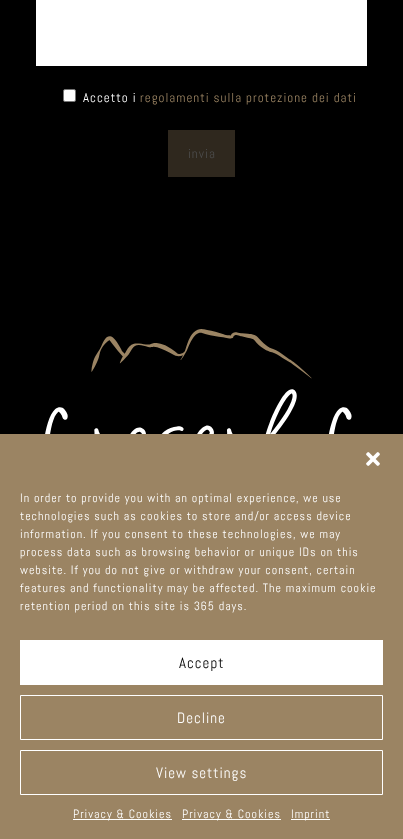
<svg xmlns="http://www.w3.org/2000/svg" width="403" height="839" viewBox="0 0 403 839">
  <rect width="100%" height="100%" fill="#000"/>
  <path d="M36 0h331v66H36z" fill="#fff"/>
  <rect x="63.5" y="89.5" width="12" height="12" rx="1.5" fill="#fff" stroke="#767676"/>
  <path d="M168 130h67v47H168z" fill="#2f281e"/>
  <image x="45" y="329" width="307" height="105" href="img/1.png"/>
  <path d="M0 434h403v405H0z" fill="#9b8463"/>
  <image x="366" y="452" width="14" height="14" href="img/2.png"/>
  <path d="M20 640h363v45H20z" fill="#fff"/>
  <path d="M20.5 695.5h362v44H20.5z" fill="none" stroke="#fff"/>
  <path d="M20.5 750.5h362v44H20.5z" fill="none" stroke="#fff"/>
  <path d="M73 819h99v1H73z" fill="#fff"/>
  <path d="M182 819h99v1H182z" fill="#fff"/>
  <path d="M291 819h39v1H291z" fill="#fff"/>
  <text x="83" y="102" font-family="Abel" font-size="13" letter-spacing="1" fill="#fff">Accetto i</text>
  <text x="140" y="102" font-family="Abel" font-size="13" letter-spacing="1" fill="#9b8463">regolamenti sulla protezione dei dati</text>
  <text x="188" y="158" font-family="Abel" font-size="13" letter-spacing="1" fill="#4d4d4d">invia</text>
  <g font-family="Abel" font-size="12" letter-spacing="1" fill="#fff">
    <text x="20" y="502">In order to provide you with an optimal experience, we use</text>
    <text x="20" y="520">technologies such as cookies to store and/or access device</text>
    <text x="20" y="538">information. If you consent to these technologies, we may</text>
    <text x="20" y="556">process data such as browsing behavior or unique IDs on this</text>
    <text x="20" y="574">website. If you do not give or withdraw your consent, certain</text>
    <text x="20" y="592">features and functionality may be affected. The maximum cookie</text>
    <text x="20" y="610">retention period on this site is 365 days.</text>
  </g>
  <text x="179" y="668" font-family="Abel" font-size="15" letter-spacing="1" fill="#000">Accept</text>
  <g font-family="Abel" font-size="15" letter-spacing="1" fill="#fff">
    <text x="177" y="723">Decline</text>
    <text x="156" y="778">View settings</text>
  </g>
  <g font-family="Abel" font-size="12" letter-spacing="1" fill="#fff">
    <text x="73" y="818">Privacy &amp; Cookies</text>
    <text x="182" y="818">Privacy &amp; Cookies</text>
    <text x="291" y="818">Imprint</text>
  </g>
</svg>
